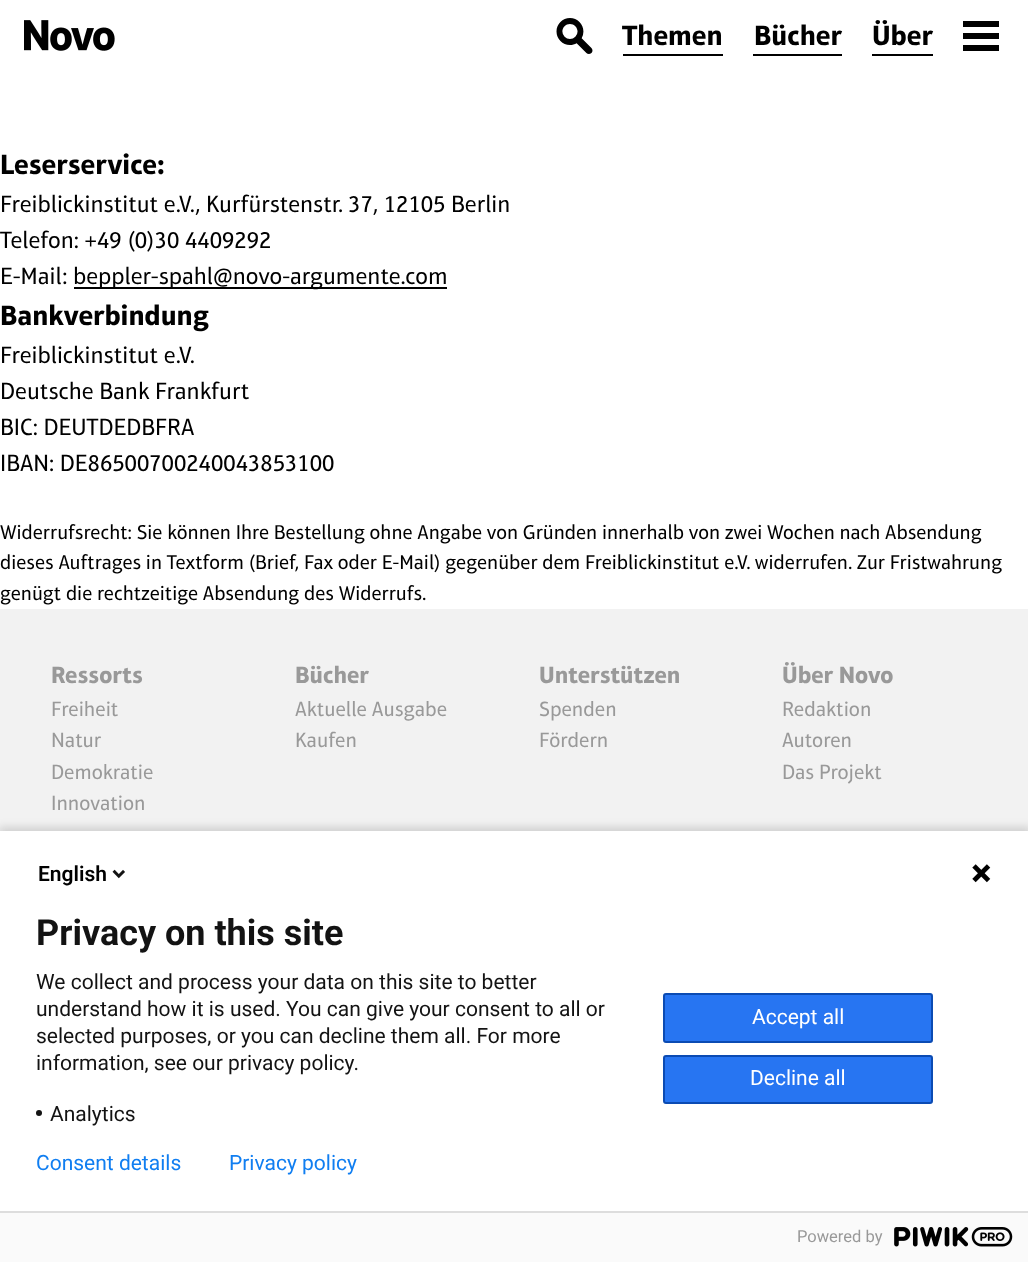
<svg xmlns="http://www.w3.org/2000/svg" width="1028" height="1262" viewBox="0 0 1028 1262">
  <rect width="100%" height="100%" fill="#fff"/>
  <image x="24" y="20" width="91" height="31" href="img/1.png"/>
  <image x="556" y="18" width="37" height="36" href="img/2.png"/>
  <path d="M623 54h100v2H623z" fill="#000"/>
  <path d="M753 54h89v2H753z" fill="#000"/>
  <path d="M872 54h61v2H872z" fill="#000"/>
  <path d="M963 21h36v6H963z" fill="#000"/>
  <path d="M963 33h36v6H963z" fill="#000"/>
  <path d="M963 45h36v6H963z" fill="#000"/>
  <path d="M74 287h373v2H74z" fill="#000"/>
  <path d="M0 609h1028v222H0z" fill="#f2f2f2"/>
  <path d="M-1 827h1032v435H-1z" fill="#00000024" filter="blur(4px)"/>
  <path d="M0 831h1028v380H0z" fill="#fff"/>
  <image x="112" y="869" width="13" height="10" href="img/3.png"/>
  <image x="972" y="864" width="19" height="19" href="img/4.png"/>
  <circle cx="39" cy="1113" r="3" fill="#131313"/>
  <rect x="664" y="994" width="268" height="48" rx="2" fill="#2775f2" stroke="#0b4bb3" stroke-width="2"/>
  <rect x="664" y="1056" width="268" height="47" rx="2" fill="#2775f2" stroke="#0b4bb3" stroke-width="2"/>
  <path d="M0 1213h1028v49H0z" fill="#fafafa"/>
  <path d="M0 1211h1028v2H0z" fill="#ddd"/>
  <image x="894" y="1227" width="119" height="20" href="img/5.png"/>
  <g font-family="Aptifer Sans" font-size="28.5" font-weight="bold" fill="#000">
    <text x="622" y="45">Themen</text>
    <text x="754" y="45">Bücher</text>
    <text x="872" y="45">Über</text>
    <text x="0" y="174">Leserservice:</text>
  </g>
  <g font-family="Aptifer Sans" font-size="24" fill="#000">
    <text x="0" y="212">Freiblickinstitut e.V., Kurfürstenstr. 37, 12105 Berlin</text>
    <text x="0" y="248">Telefon: +49 (0)30 4409292</text>
    <text x="0" y="284">E-Mail:</text>
    <text x="73" y="284">beppler-spahl@novo-argumente.com</text>
  </g>
  <text x="0" y="325" font-family="Aptifer Sans" font-size="28.5" font-weight="bold" fill="#000">Bankverbindung</text>
  <g font-family="Aptifer Sans" font-size="24" fill="#000">
    <text x="0" y="363">Freiblickinstitut e.V.</text>
    <text x="0" y="399">Deutsche Bank Frankfurt</text>
    <text x="0" y="435">BIC: DEUTDEDBFRA</text>
    <text x="0" y="471">IBAN: DE86500700240043853100</text>
  </g>
  <g font-family="Aptifer Sans" font-size="20.4" fill="#000">
    <text x="0" y="539">Widerrufsrecht: Sie können Ihre Bestellung ohne Angabe von Gründen innerhalb von zwei Wochen nach Absendung</text>
    <text x="0" y="569">dieses Auftrages in Textform (Brief, Fax oder E-Mail) gegenüber dem Freiblickinstitut e.V. widerrufen. Zur Fristwahrung</text>
    <text x="0" y="600">genügt die rechtzeitige Absendung des Widerrufs.</text>
  </g>
  <text x="51" y="683" font-family="Aptifer Sans" font-size="24" font-weight="bold" fill="#999">Ressorts</text>
  <g font-family="Aptifer Sans" font-size="21" fill="#999">
    <text x="51" y="716">Freiheit</text>
    <text x="51" y="747">Natur</text>
    <text x="51" y="779">Demokratie</text>
    <text x="51" y="810">Innovation</text>
  </g>
  <text x="295" y="683" font-family="Aptifer Sans" font-size="24" font-weight="bold" fill="#999">Bücher</text>
  <g font-family="Aptifer Sans" font-size="21" fill="#999">
    <text x="295" y="716">Aktuelle Ausgabe</text>
    <text x="295" y="747">Kaufen</text>
  </g>
  <text x="539" y="683" font-family="Aptifer Sans" font-size="24" font-weight="bold" fill="#999">Unterstützen</text>
  <g font-family="Aptifer Sans" font-size="21" fill="#999">
    <text x="539" y="716">Spenden</text>
    <text x="539" y="747">Fördern</text>
  </g>
  <text x="782" y="683" font-family="Aptifer Sans" font-size="24" font-weight="bold" fill="#999">Über Novo</text>
  <g font-family="Aptifer Sans" font-size="21" fill="#999">
    <text x="782" y="716">Redaktion</text>
    <text x="782" y="747">Autoren</text>
    <text x="782" y="779">Das Projekt</text>
  </g>
  <text x="38" y="881" font-family="Roboto" font-size="21" font-weight="600" fill="#000">English</text>
  <text x="36" y="945" font-family="Roboto" font-size="36" font-weight="bold" fill="#131313">Privacy on this site</text>
  <g font-family="Roboto" font-size="21" fill="#131313">
    <text x="36" y="989">We collect and process your data on this site to better</text>
    <text x="36" y="1016">understand how it is used. You can give your consent to all or</text>
    <text x="36" y="1043">selected purposes, or you can decline them all. For more</text>
    <text x="36" y="1070">information, see our privacy policy.</text>
    <text x="50" y="1121">Analytics</text>
  </g>
  <g font-family="Roboto" font-size="21" fill="#fff">
    <text x="752" y="1024">Accept all</text>
    <text x="750" y="1085">Decline all</text>
  </g>
  <g font-family="Roboto" font-size="21" fill="#107ef1">
    <text x="36" y="1170">Consent details</text>
    <text x="229" y="1170">Privacy policy</text>
  </g>
  <text x="797" y="1242" font-family="Roboto" font-size="16.5" fill="#999">Powered by</text>
</svg>
